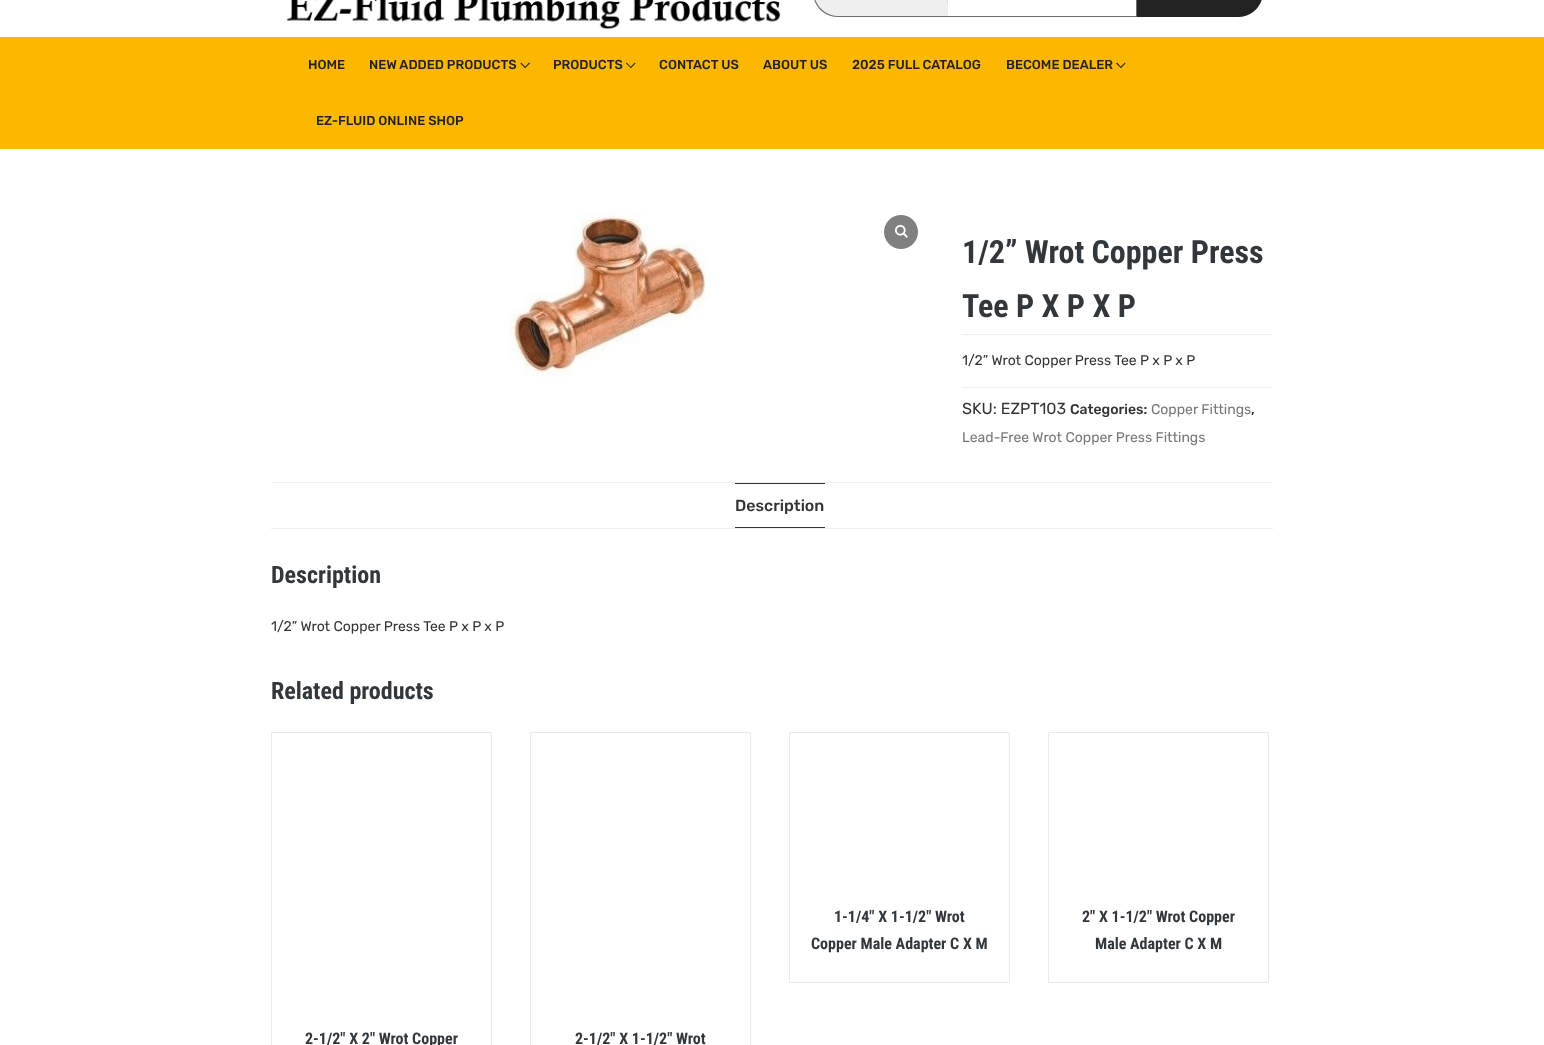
<svg xmlns="http://www.w3.org/2000/svg" width="1544" height="1045" viewBox="0 0 1544 1045">
  <rect width="100%" height="100%" fill="#fff"/>
  <image x="286" y="0" width="495" height="30" href="img/1.png"/>
  <path d="M838-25H948V17H838C824 17 813 6 813-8V0C813-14 824-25 838-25Z" fill="#efefef"/>
  <path d="M838-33H948V17H838C824 17 813 6 813-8C813-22 824-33 838-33ZM838-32H948V16H838C825 16 814 5 814-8C814-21 825-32 838-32Z" fill="#6e6e6e" fill-rule="evenodd"/>
  <path d="M947 0h1v3H947z" fill="#d8dadc"/>
  <path d="M1136 0h1v17H1136z" fill="#6e6e6e"/>
  <path d="M948 16h189v1H948z" fill="#6e6e6e"/>
  <path d="M1137-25H1238C1252-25 1263-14 1263 0V-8C1263 6 1252 17 1238 17H1137Z" fill="#222"/>
  <path d="M0 37h1544v112H0z" fill="#fcb700"/>
  <path d="M529 62.5L530 63.5L525 68L524.5 67.5Z" fill="#222"/>
  <path d="M521 62.5L526 67.5L525 68L520.5 63.5Z" fill="#222"/>
  <path d="M635 62.5L635.5 63.5L631 68L630 67.5Z" fill="#222"/>
  <path d="M626.5 62.5L631.5 67.5L631 68L626 63.5Z" fill="#222"/>
  <path d="M1125 62.5L1125.5 63.5L1121 68L1120 67.5Z" fill="#222"/>
  <path d="M1117 62.5L1121.5 67.5L1121 68L1116 63.5Z" fill="#222"/>
  <image x="509" y="212" width="202" height="164" href="img/2.png"/>
  <circle cx="901" cy="232" r="17" fill="#808080"/>
  <image x="895" y="225" width="13" height="13" href="img/3.png"/>
  <path d="M962 334h311v1H962z" fill="#f2ecec"/>
  <path d="M962 387h311v1H962z" fill="#f2ecec"/>
  <path d="M271 482h1002v1H271z" fill="#f2ecec"/>
  <path d="M271 528h1002v1H271z" fill="#f2ecec"/>
  <path d="M735 483h90v1H735z" fill="#333"/>
  <path d="M735 527h90v1H735z" fill="#333"/>
  <path d="M789.5 732.5h220v250H789.5z" fill="none" stroke="#eaeaea"/>
  <path d="M1048.5 732.5h220v250H1048.5z" fill="none" stroke="#eaeaea"/>
  <path d="M271.5 732.5h220v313H271.5z" fill="none" stroke="#eaeaea"/>
  <path d="M530.5 732.5h220v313H530.5z" fill="none" stroke="#eaeaea"/>
  <g font-family="Rubik" font-size="13" font-weight="500" fill="#222">
    <text x="308" y="69">HOME</text>
    <text x="369" y="69">NEW ADDED PRODUCTS</text>
    <text x="553" y="69">PRODUCTS</text>
    <text x="659" y="69">CONTACT US</text>
    <text x="763" y="69">ABOUT US</text>
    <text x="852" y="69">2025 FULL CATALOG</text>
    <text x="1006" y="69">BECOME DEALER</text>
    <text x="316" y="125">EZ-FLUID ONLINE SHOP</text>
  </g>
  <g font-family="Roboto Condensed" font-size="32" font-weight="bold" fill="#32373c">
    <text x="962" y="263">1/2” Wrot Copper Press</text>
    <text x="962" y="317">Tee P X P X P</text>
  </g>
  <text x="962" y="365" font-family="Rubik" font-size="14" fill="#333">1/2” Wrot Copper Press Tee P x P x P</text>
  <text x="962" y="414" font-family="Rubik" font-size="16" fill="#333">SKU: EZPT103</text>
  <text x="1070" y="414" font-family="Rubik" font-size="14" font-weight="500" fill="#333">Categories:</text>
  <text x="1151" y="414" font-family="Rubik" font-size="14" fill="#777">Copper Fittings</text>
  <text x="1251" y="414" font-family="Rubik" font-size="14" font-weight="500" fill="#333">,</text>
  <text x="962" y="442" font-family="Rubik" font-size="14" fill="#777">Lead-Free Wrot Copper Press Fittings</text>
  <text x="735" y="511" font-family="Rubik" font-size="16" font-weight="500" fill="#333">Description</text>
  <text x="271" y="583" font-family="Roboto Condensed" font-size="24" font-weight="bold" fill="#32373c">Description</text>
  <text x="271" y="631" font-family="Rubik" font-size="14" fill="#333">1/2” Wrot Copper Press Tee P x P x P</text>
  <text x="271" y="699" font-family="Roboto Condensed" font-size="24" font-weight="bold" fill="#32373c">Related products</text>
  <g font-family="Roboto Condensed" font-size="16" font-weight="bold" fill="#32373c">
    <text x="834" y="922">1-1/4″ X 1-1/2″ Wrot</text>
    <text x="811" y="949">Copper Male Adapter C X M</text>
    <text x="1082" y="922">2″ X 1-1/2″ Wrot Copper</text>
    <text x="1095" y="949">Male Adapter C X M</text>
    <text x="305" y="1044">2-1/2″ X 2″ Wrot Copper</text>
    <text x="575" y="1044">2-1/2″ X 1-1/2″ Wrot</text>
  </g>
</svg>
